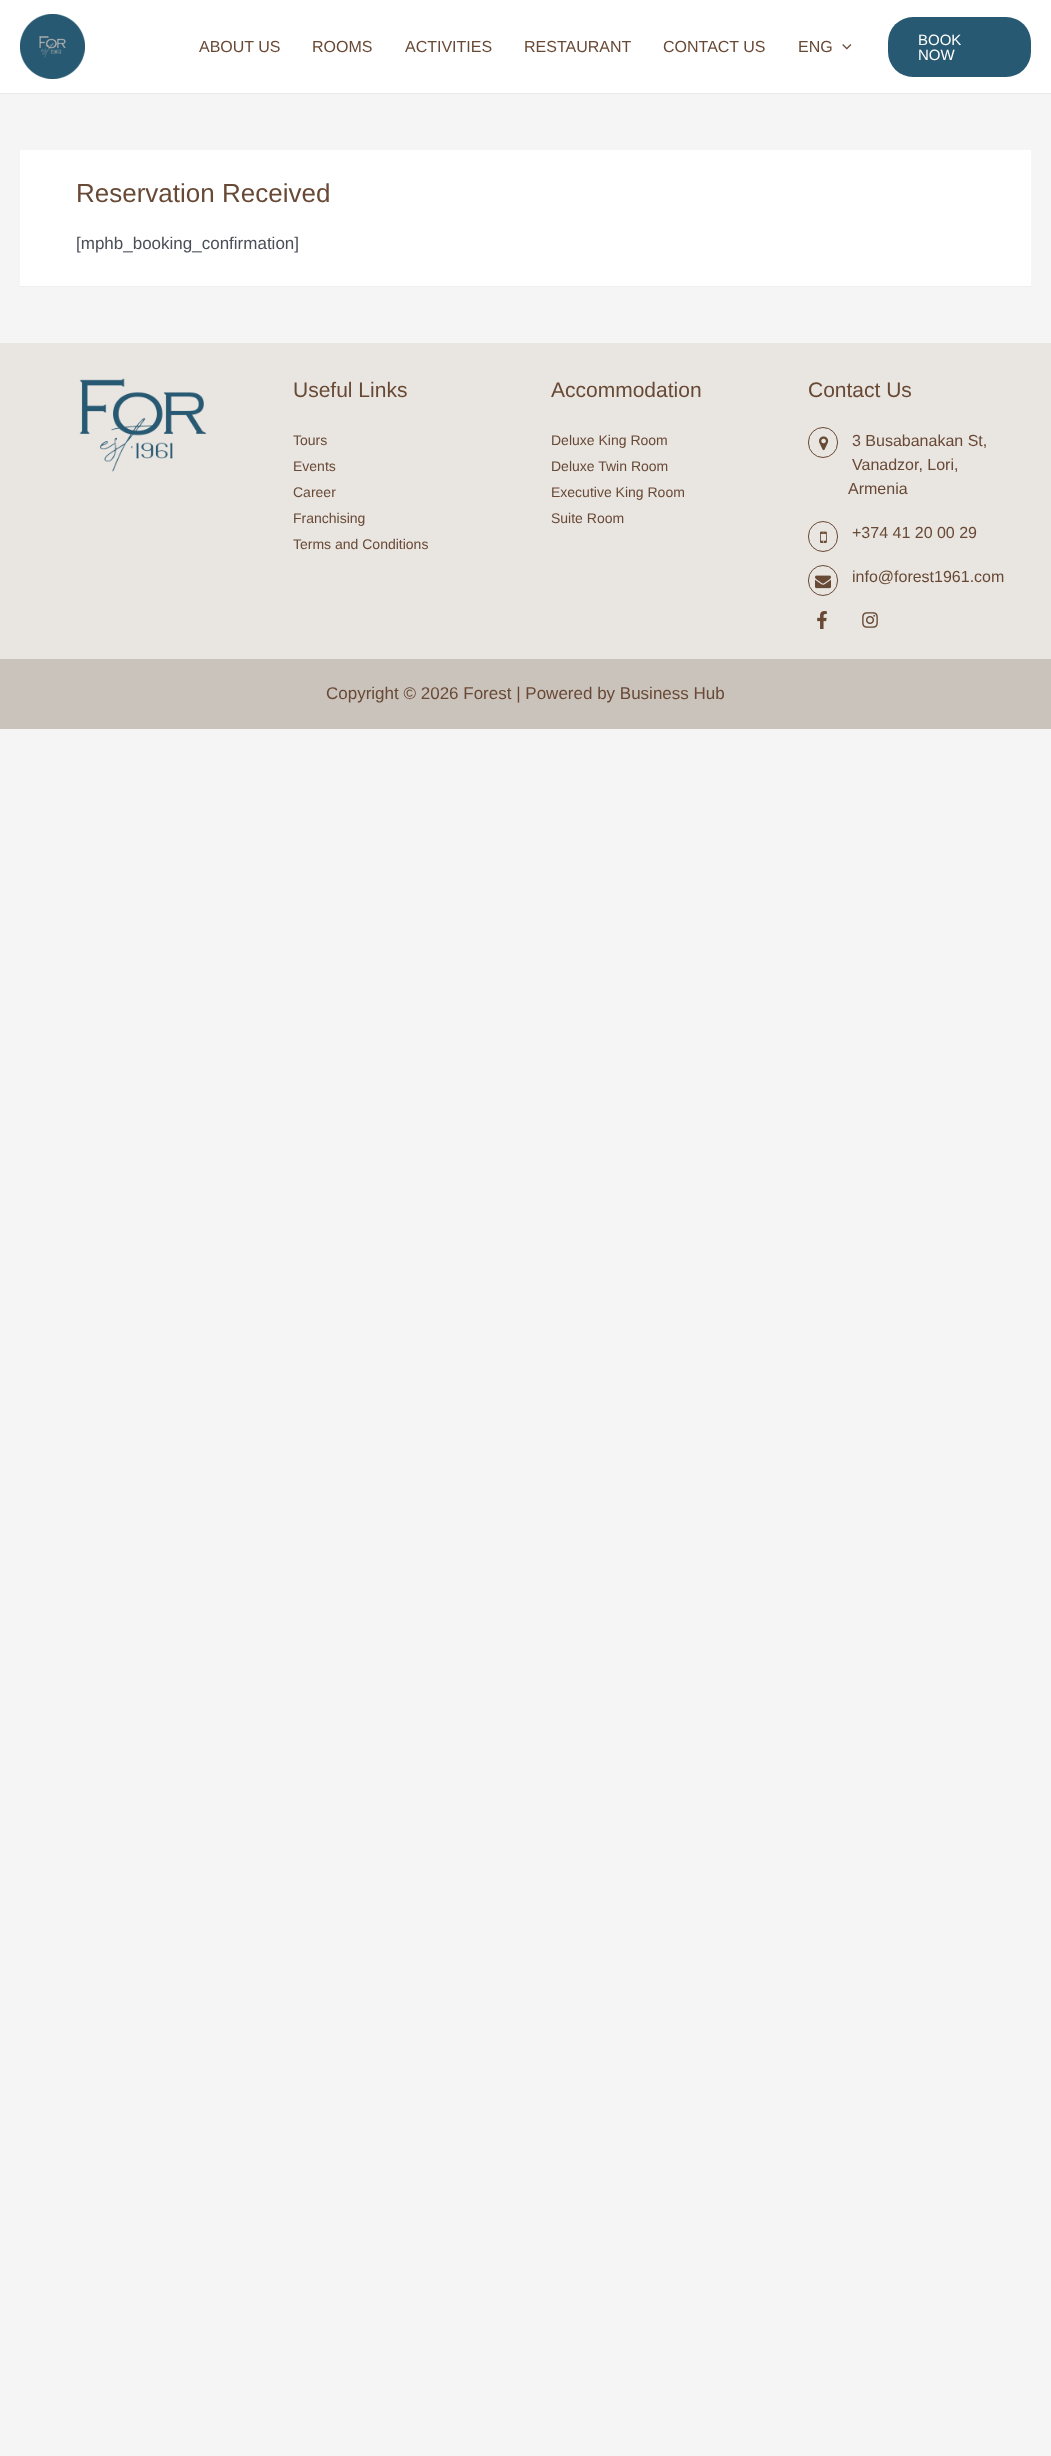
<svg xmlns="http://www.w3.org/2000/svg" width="1051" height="2456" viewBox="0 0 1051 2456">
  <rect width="100%" height="100%" fill="#f5f5f5"/>
  <path d="M0 0h1051v93H0z" fill="#fff"/>
  <path d="M0 93h1051v1H0z" fill="#eaeaea"/>
  <image x="20" y="14" width="65" height="65" href="img/1.png"/>
  <image x="842" y="44" width="10" height="6" href="img/2.png"/>
  <rect x="888" y="17" width="143" height="60" rx="25" fill="#275972"/>
  <path d="M20 150h1011v136H20z" fill="#fff"/>
  <path d="M20 286h1011v1H20z" fill="#eee"/>
  <path d="M0 343h1051v316H0z" fill="#e9e5e1"/>
  <image x="79" y="378" width="128" height="94" href="img/3.png"/>
  <rect x="808.5" y="427.5" width="29" height="30" rx="14.5" fill="none" stroke="#684935"/>
  <image x="819" y="436" width="10" height="15" href="img/4.png"/>
  <rect x="808.5" y="521.5" width="29" height="30" rx="14.5" fill="none" stroke="#684935"/>
  <image x="820" y="531" width="7" height="12" href="img/5.png"/>
  <rect x="808.5" y="565.5" width="29" height="30" rx="14.5" fill="none" stroke="#684935"/>
  <image x="815" y="575" width="16" height="14" href="img/6.png"/>
  <image x="817" y="611" width="10" height="18" href="img/7.png"/>
  <image x="862" y="612" width="16" height="16" href="img/8.png"/>
  <path d="M0 659h1051v70H0z" fill="#cac3bc"/>
  <g font-family="Liberation Sans" font-size="16" fill="#684935">
    <text x="199" y="52">ABOUT US</text>
    <text x="312" y="52">ROOMS</text>
    <text x="405" y="52">ACTIVITIES</text>
    <text x="524" y="52">RESTAURANT</text>
    <text x="663" y="52">CONTACT US</text>
    <text x="798" y="52">ENG</text>
  </g>
  <g font-family="Liberation Sans" font-size="15" fill="#fff">
    <text x="918" y="45">BOOK</text>
    <text x="918" y="60">NOW</text>
  </g>
  <text x="76" y="202" font-family="Liberation Sans" font-size="26" fill="#684935">Reservation Received</text>
  <text x="76" y="249" font-family="Liberation Sans" font-size="17" fill="#4b4f58">[mphb_booking_confirmation]</text>
  <text x="293" y="397" font-family="Liberation Sans" font-size="21" fill="#684935">Useful Links</text>
  <g font-family="Liberation Sans" font-size="14" fill="#684935">
    <text x="293" y="445">Tours</text>
    <text x="293" y="471">Events</text>
    <text x="293" y="497">Career</text>
    <text x="293" y="523">Franchising</text>
    <text x="293" y="549">Terms and Conditions</text>
  </g>
  <text x="551" y="397" font-family="Liberation Sans" font-size="21" fill="#684935">Accommodation</text>
  <g font-family="Liberation Sans" font-size="14" fill="#684935">
    <text x="551" y="445">Deluxe King Room</text>
    <text x="551" y="471">Deluxe Twin Room</text>
    <text x="551" y="497">Executive King Room</text>
    <text x="551" y="523">Suite Room</text>
  </g>
  <text x="808" y="397" font-family="Liberation Sans" font-size="21" fill="#684935">Contact Us</text>
  <g font-family="Liberation Sans" font-size="16" fill="#684935">
    <text x="852" y="446">3 Busabanakan St,</text>
    <text x="852" y="470">Vanadzor, Lori,</text>
    <text x="848" y="494">Armenia</text>
    <text x="852" y="538">+374 41 20 00 29</text>
    <text x="852" y="582">info@forest1961.com</text>
  </g>
  <text x="326" y="699" font-family="Liberation Sans" font-size="17" fill="#684935">Copyright © 2026 Forest | Powered by Business Hub</text>
</svg>
